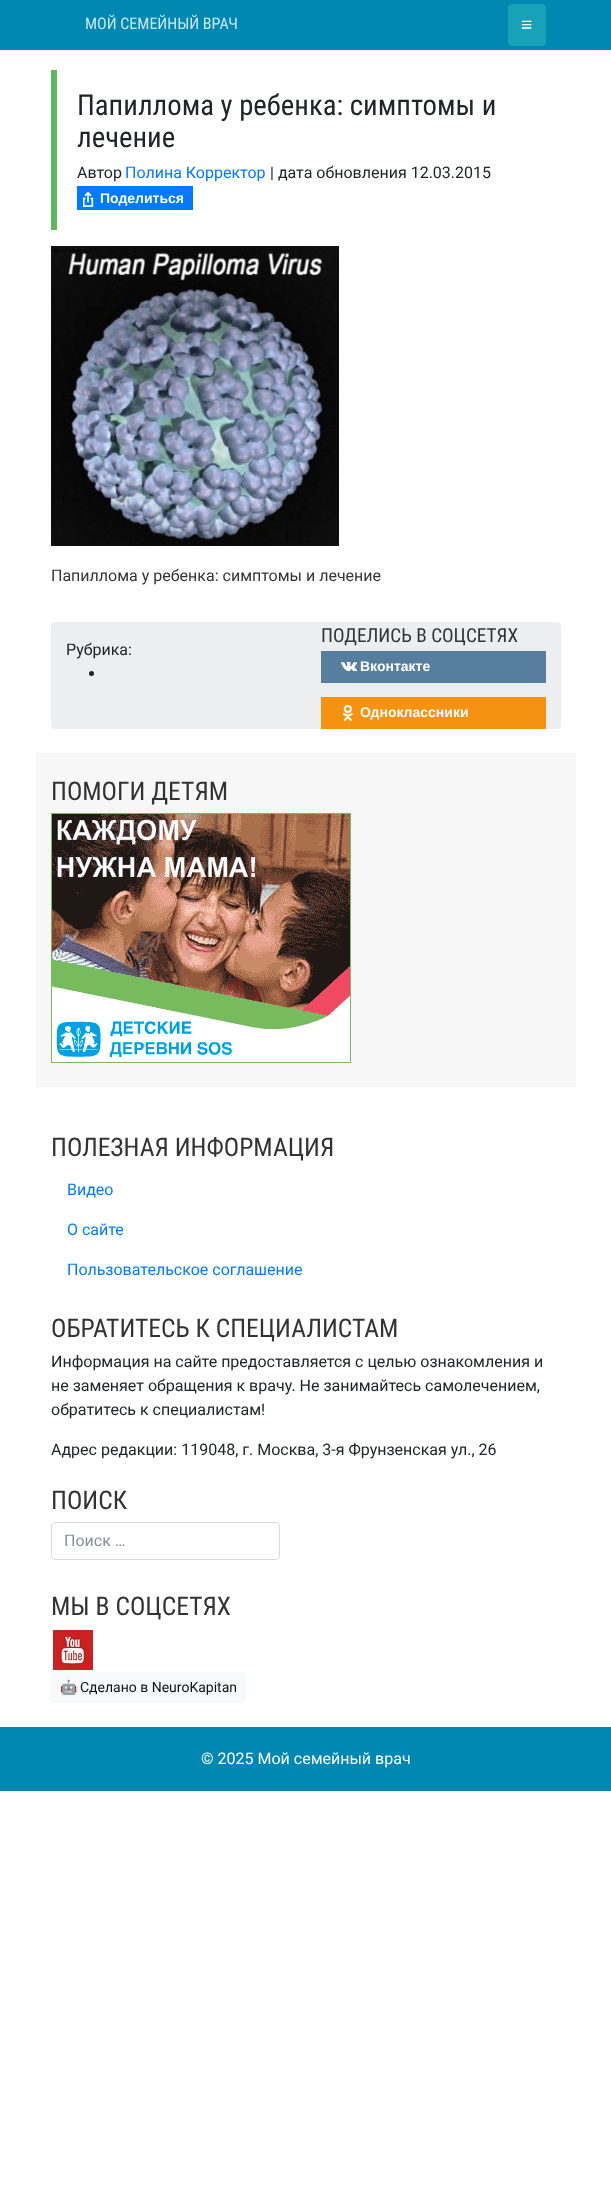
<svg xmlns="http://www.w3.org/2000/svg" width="611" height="2208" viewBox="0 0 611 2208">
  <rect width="100%" height="100%" fill="#fff"/>
  <path d="M1 1h609v48H1z" fill="#333" filter="blur(1px)"/>
  <path d="M0 0h611v50H0z" fill="#0088b2"/>
  <rect x="508.5" y="4.5" width="37" height="41" rx="3.5" fill="#17a2b8" stroke="#17a2b8"/>
  <path d="M51 70h6v160H51z" fill="#5cb85c"/>
  <path d="M77 186h116v24H77z" fill="#007aff"/>
  <image x="83" y="191" width="11" height="16" href="img/1.png"/>
  <image x="51" y="246" width="288" height="300" href="img/2.png"/>
  <rect x="51" y="622" width="510" height="107" rx="4" fill="#eceeef"/>
  <circle cx="91.5" cy="673.5" r="2.5" fill="#212529"/>
  <path d="M321 651h225v32H321z" fill="#587e9f"/>
  <image x="341" y="661" width="17" height="11" href="img/3.png"/>
  <path d="M321 697h225v32H321z" fill="#f59310"/>
  <image x="343" y="704" width="10" height="17" href="img/4.png"/>
  <path d="M36 753h540v334H36z" fill="#f7f7f7"/>
  <image x="51" y="813" width="300" height="250" href="img/5.png"/>
  <rect x="51.5" y="1522.5" width="228" height="37" rx="3.5" fill="none" stroke="#d9d9d9"/>
  <image x="53" y="1630" width="40" height="40" href="img/6.png"/>
  <rect x="51" y="1672" width="195" height="31" rx="3" fill="#f8f9fa"/>
  <path d="M0 1727h611v64H0z" fill="#0088b2"/>
  <text x="85" y="29" font-family="Roboto Condensed" font-size="16" fill="#cce7f0">МОЙ СЕМЕЙНЫЙ ВРАЧ</text>
  <text x="521" y="31" font-family="Liberation Sans" font-size="19.25" fill="#fff">≡</text>
  <g font-family="Roboto Condensed" font-size="28.75" fill="#212529">
    <text x="77" y="115">Папиллома у ребенка: симптомы и</text>
    <text x="77" y="147">лечение</text>
  </g>
  <text x="77" y="178" font-family="Roboto" font-size="16" fill="#212529">Автор</text>
  <text x="125" y="178" font-family="Roboto" font-size="16" fill="#007bff">Полина Корректор</text>
  <text x="270" y="178" font-family="Roboto" font-size="16" fill="#212529">| дата обновления 12.03.2015</text>
  <text x="100" y="203" font-family="Liberation Sans" font-size="14" font-weight="bold" fill="#fff">Поделиться</text>
  <text x="51" y="581" font-family="Roboto" font-size="16" fill="#333">Папиллома у ребенка: симптомы и лечение</text>
  <text x="66" y="655" font-family="Roboto" font-size="16" fill="#212529">Рубрика:</text>
  <text x="321" y="642" font-family="Roboto Condensed" font-size="19.25" fill="#333">ПОДЕЛИСЬ В СОЦСЕТЯХ</text>
  <g font-family="Liberation Sans" font-size="14" font-weight="bold" fill="#fff">
    <text x="360" y="671">Вконтакте</text>
    <text x="360" y="717">Одноклассники</text>
  </g>
  <g font-family="Roboto Condensed" font-size="25.6" fill="#333">
    <text x="51" y="800">ПОМОГИ ДЕТЯМ</text>
    <text x="51" y="1156">ПОЛЕЗНАЯ ИНФОРМАЦИЯ</text>
  </g>
  <g font-family="Roboto" font-size="16" fill="#007bff">
    <text x="67" y="1195">Видео</text>
    <text x="67" y="1235">О сайте</text>
    <text x="67" y="1275">Пользовательское соглашение</text>
  </g>
  <text x="51" y="1337" font-family="Roboto Condensed" font-size="25.6" fill="#333">ОБРАТИТЕСЬ К СПЕЦИАЛИСТАМ</text>
  <g font-family="Roboto" font-size="16" fill="#212529">
    <text x="51" y="1367">Информация на сайте предоставляется с целью ознакомления и</text>
    <text x="51" y="1391">не заменяет обращения к врачу. Не занимайтесь самолечением,</text>
    <text x="51" y="1415">обратитесь к специалистам!</text>
    <text x="51" y="1455">Адрес редакции: 119048, г. Москва, 3-я Фрунзенская ул., 26</text>
  </g>
  <text x="51" y="1509" font-family="Roboto Condensed" font-size="25.6" fill="#333">ПОИСК</text>
  <text x="64" y="1546" font-family="Roboto" font-size="16" fill="#868e96">Поиск …</text>
  <text x="51" y="1615" font-family="Roboto Condensed" font-size="25.6" fill="#333">МЫ В СОЦСЕТЯХ</text>
  <text x="60" y="1692" font-family="Noto Color Emoji" font-size="14" fill="#111">🤖</text>
  <text x="80" y="1692" font-family="Roboto" font-size="14" fill="#111">Сделано в NeuroKapitan</text>
  <text x="201" y="1764" font-family="Roboto" font-size="16" fill="#fff">© 2025 Мой семейный врач</text>
</svg>
